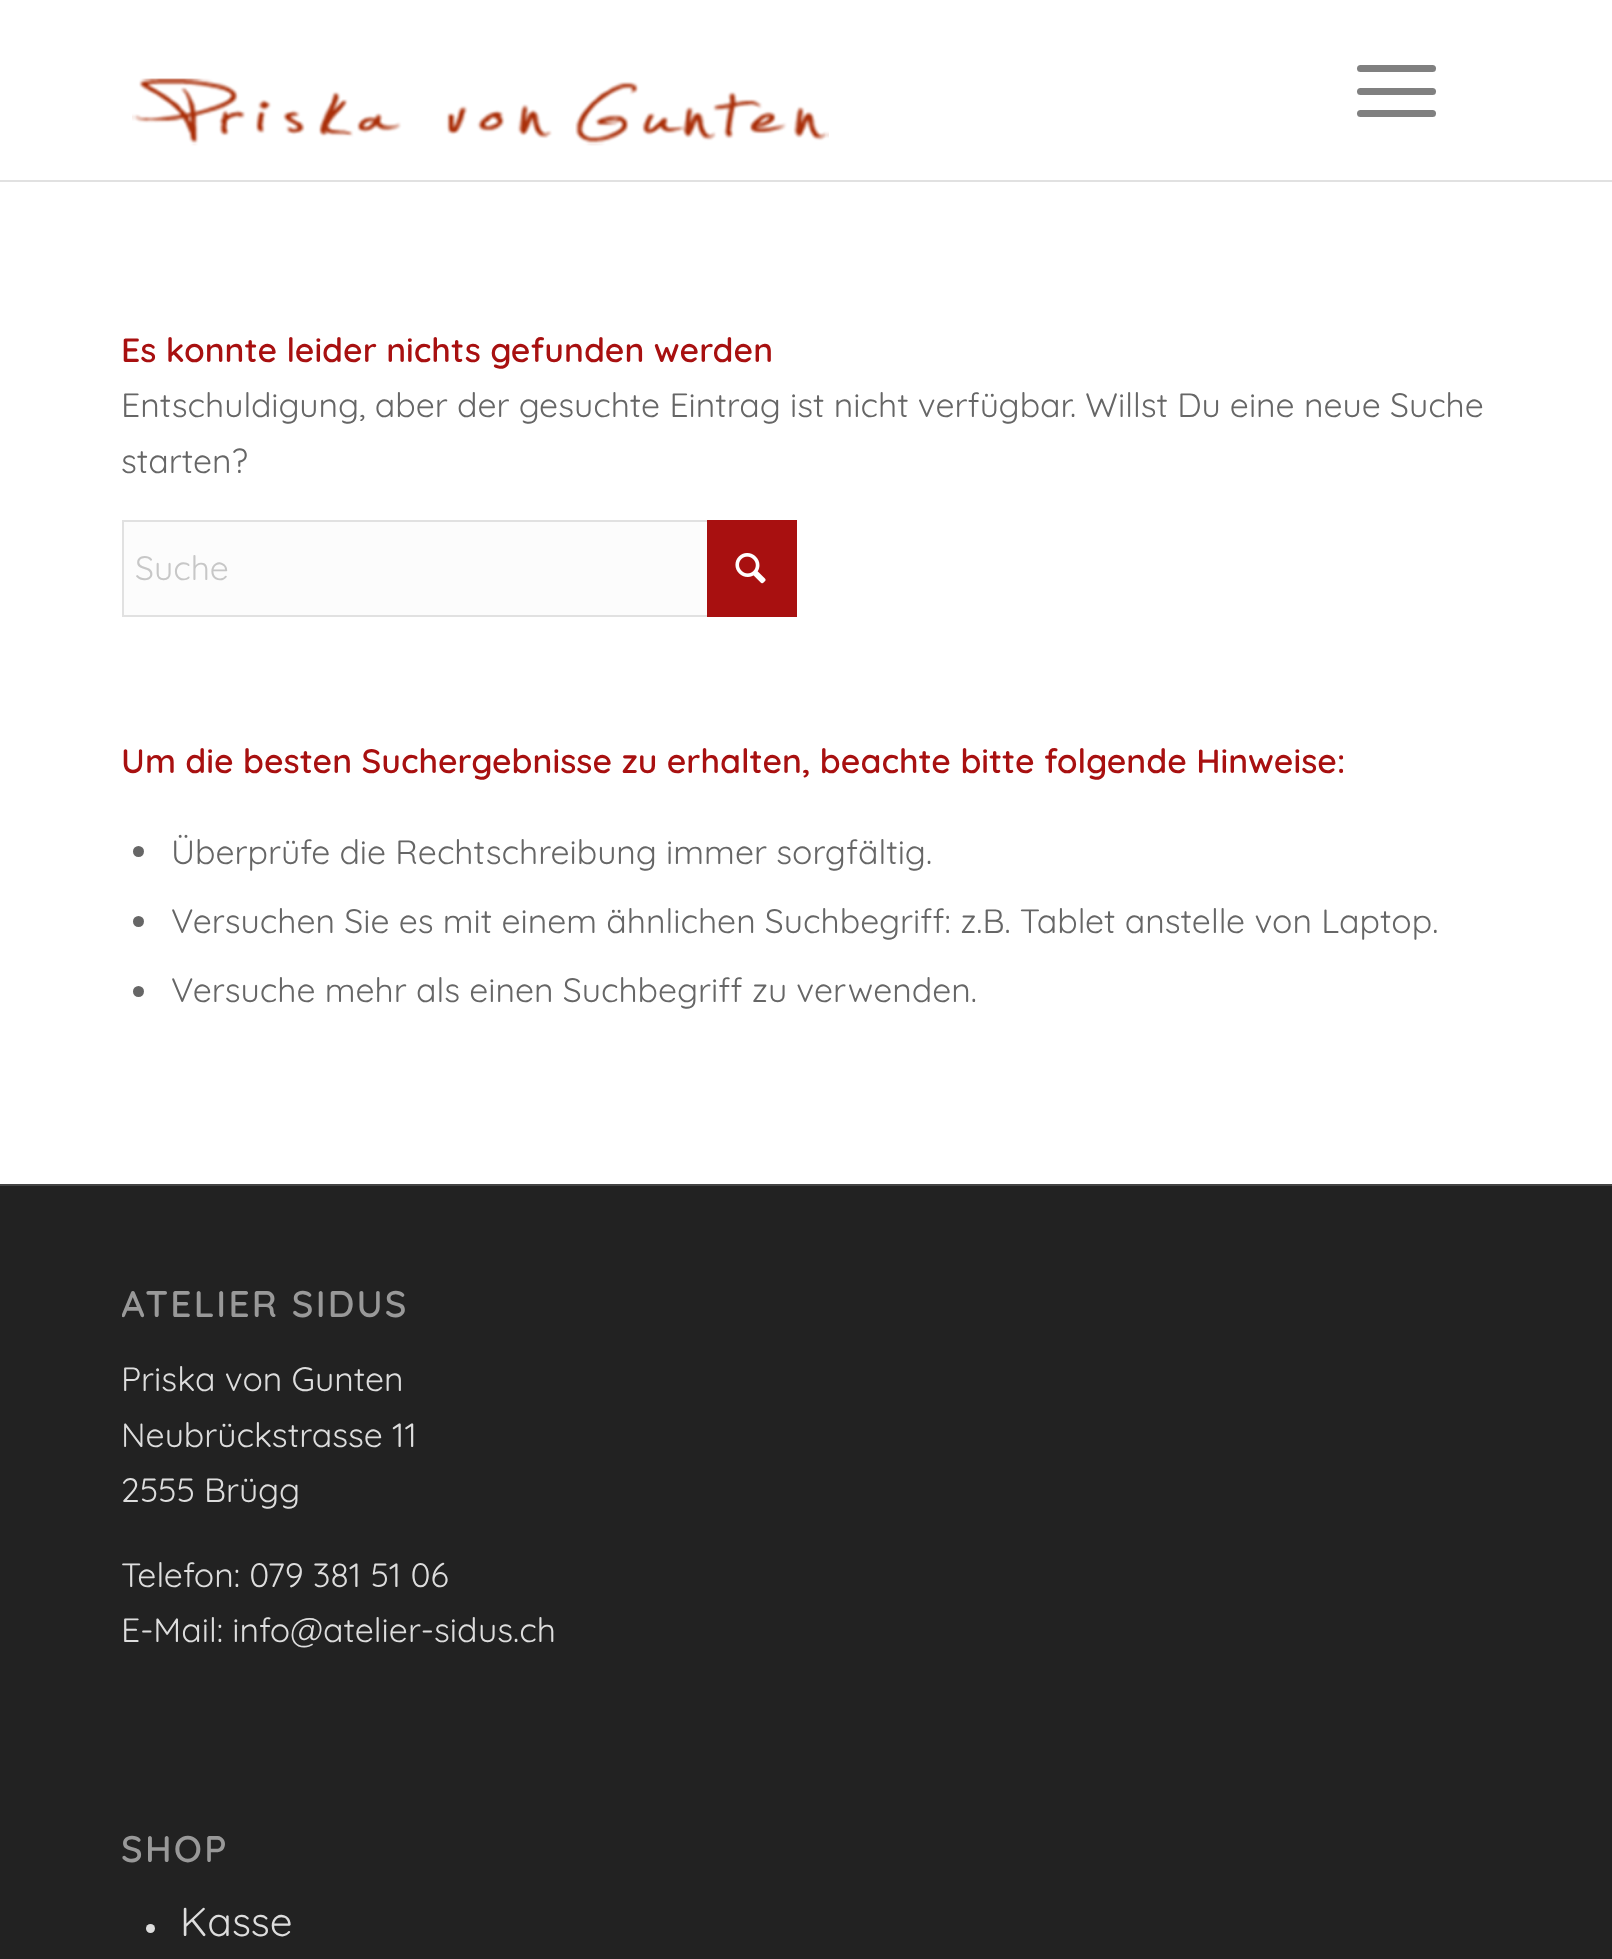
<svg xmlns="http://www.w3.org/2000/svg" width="1612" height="1959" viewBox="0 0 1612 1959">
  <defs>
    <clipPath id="clip1"><path d="M122 1251h1370v437H122z"/></clipPath>
  </defs>
  <rect width="100%" height="100%" fill="#fff"/>
  <path d="M0 180h1612v2H0z" fill="#e1e1e1"/>
  <image x="132" y="78" width="697" height="68" href="img/1.png"/>
  <rect x="1357" y="88" width="79" height="7" rx="3.5" fill="#808080"/>
  <rect x="1357" y="65" width="79" height="7" rx="3.5" fill="#808080"/>
  <rect x="1357" y="110" width="79" height="7" rx="3.5" fill="#808080"/>
  <path d="M124 522h583v93H124z" fill="#fcfcfc"/>
  <path d="M123 521h673v95H123z" fill="none" stroke="#e1e1e1" stroke-width="2"/>
  <path d="M707 520h90v97H707z" fill="#a81010"/>
  <image x="735" y="553" width="31" height="31" href="img/2.png"/>
  <circle cx="138.5" cy="851.5" r="5.5" fill="#666"/>
  <circle cx="138.5" cy="921.5" r="5.5" fill="#666"/>
  <circle cx="138.5" cy="991.5" r="5.5" fill="#666"/>
  <path d="M0 1186h1612v773H0z" fill="#222"/>
  <path d="M0 1184h1612v2H0z" fill="#444"/>
  <circle cx="150.5" cy="1928.5" r="4.5" fill="#ddd"/>
  <text x="121" y="362" font-family="Quicksand" font-size="33.75" font-weight="600" fill="#a81010">Es konnte leider nichts gefunden werden</text>
  <g font-family="Quicksand" font-size="33.75" fill="#666">
    <text x="121" y="417">Entschuldigung, aber der gesuchte Eintrag ist nicht verfügbar. Willst Du eine neue Suche</text>
    <text x="121" y="473">starten?</text>
  </g>
  <text x="135" y="580" font-family="Quicksand" font-size="33.75" fill="#c7c7c7">Suche</text>
  <text x="121" y="773" font-family="Quicksand" font-size="33.75" font-weight="600" fill="#a81010">Um die besten Suchergebnisse zu erhalten, beachte bitte folgende Hinweise:</text>
  <g font-family="Quicksand" font-size="33.75" fill="#666">
    <text x="171" y="864">Überprüfe die Rechtschreibung immer sorgfältig.</text>
    <text x="171" y="933">Versuchen Sie es mit einem ähnlichen Suchbegriff: z.B. Tablet anstelle von Laptop.</text>
    <text x="171" y="1002">Versuche mehr als einen Suchbegriff zu verwenden.</text>
  </g>
  <g clip-path="url(#clip1)">
    <text x="121" y="1317" font-family="Quicksand" font-size="37" font-weight="600" letter-spacing="2.25" fill="#999">ATELIER SIDUS</text>
  </g>
  <g font-family="Quicksand" font-size="33.75" fill="#ddd">
    <text x="121" y="1391">Priska von Gunten</text>
    <text x="121" y="1447">Neubrückstrasse 11</text>
    <text x="121" y="1502">2555 Brügg</text>
    <text x="121" y="1587">Telefon: 079 381 51 06</text>
    <text x="121" y="1642">E-Mail: info@atelier-sidus.ch</text>
  </g>
  <text x="121" y="1862" font-family="Quicksand" font-size="37" font-weight="600" letter-spacing="2.25" fill="#999">SHOP</text>
  <text x="180" y="1936" font-family="Quicksand" font-size="40.5" fill="#ddd">Kasse</text>
</svg>
